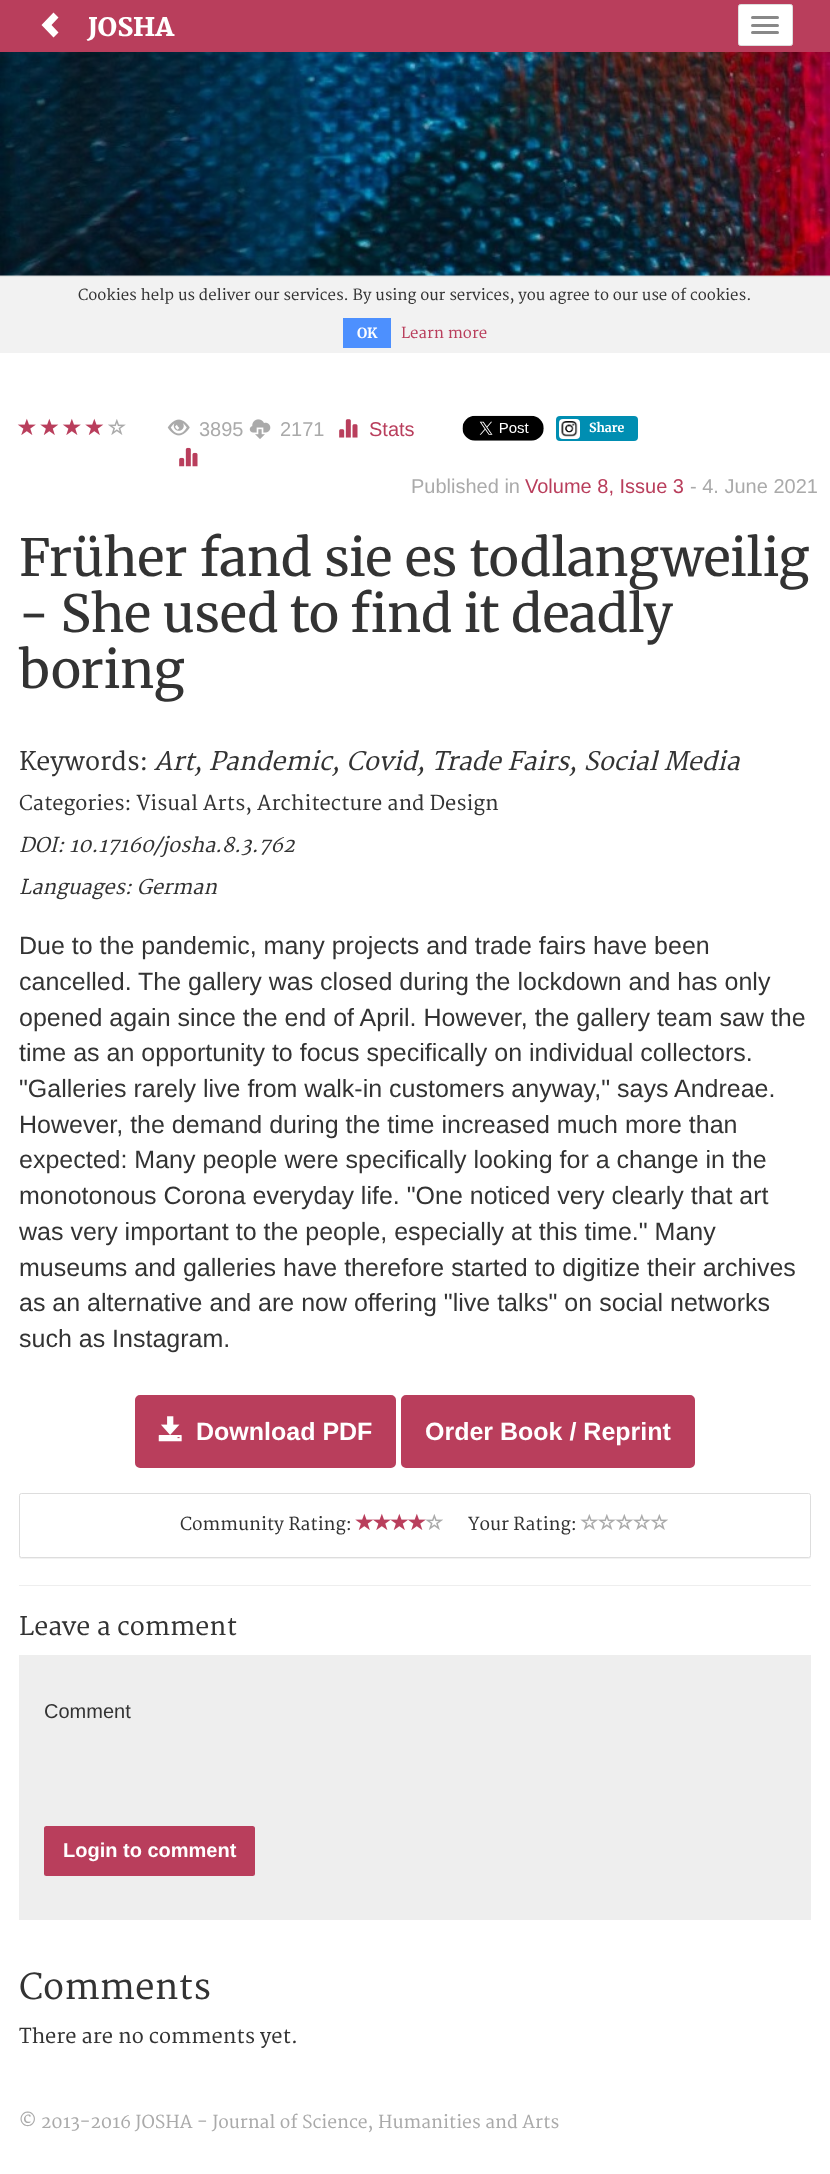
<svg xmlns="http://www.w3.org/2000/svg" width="830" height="2174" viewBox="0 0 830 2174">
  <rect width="100%" height="100%" fill="#fff"/>
  <path d="M0 0h830v52H0z" fill="#b93e5c"/>
  <path d="M41.5 25L53.5 37.5L58.5 32.5L51.5 25L58.5 17.5L53.5 12.5Z" fill="#fff"/>
  <rect x="738.5" y="4.5" width="54" height="41" rx="2" fill="#fff" stroke="#ddd"/>
  <rect x="751" y="16" width="28" height="3" rx="1.5" fill="#888"/>
  <rect x="751" y="24" width="28" height="3" rx="1.5" fill="#888"/>
  <rect x="751" y="31" width="28" height="3" rx="1.5" fill="#888"/>
  <path d="M0 275h830v1H0z" fill="#eee"/>
  <image x="0" y="52" width="830" height="224" href="img/1.png"/>
  <path d="M0 277h830v76H0z" fill="#f2f2f2"/>
  <path d="M0 276h830v1H0z" fill="#e4e4e4"/>
  <path d="M343 318h48v30H343z" fill="#4d90fe"/>
  <image x="17" y="418" width="19" height="17" href="img/2.png"/>
  <image x="40" y="418" width="19" height="17" href="img/3.png"/>
  <image x="62" y="418" width="19" height="17" href="img/2.png"/>
  <image x="85" y="418" width="19" height="17" href="img/3.png"/>
  <image x="108" y="419" width="18" height="16" href="img/4.png"/>
  <image x="167" y="419" width="23" height="17" href="img/5.png"/>
  <image x="249" y="419" width="22" height="20" href="img/6.png"/>
  <image x="339" y="419" width="19" height="19" href="img/7.png"/>
  <image x="179" y="447" width="19" height="20" href="img/8.png"/>
  <image x="462" y="415" width="82" height="26" href="img/9.png"/>
  <rect x="556" y="416" width="82" height="25" rx="4" fill="#008eb2"/>
  <rect x="559" y="419" width="21" height="20" rx="4" fill="#fff"/>
  <image x="561" y="421" width="17" height="16" href="img/10.png"/>
  <rect x="137" y="1397" width="257" height="69" rx="3" fill="#b93e5c" stroke="#b93e5c" stroke-width="4"/>
  <image x="158" y="1416" width="24" height="26" href="img/11.png"/>
  <rect x="403" y="1397" width="290" height="69" rx="3" fill="#b93e5c" stroke="#b93e5c" stroke-width="4"/>
  <rect x="19" y="1494" width="792" height="65" rx="2.5" fill="#0000000d" filter="blur(0.5px)"/>
  <rect x="19.5" y="1493.5" width="791" height="64" rx="2" fill="#fff" stroke="#ddd"/>
  <image x="355" y="1513" width="19" height="17" href="img/3.png"/>
  <image x="373" y="1513" width="18" height="17" href="img/12.png"/>
  <image x="390" y="1513" width="19" height="17" href="img/13.png"/>
  <image x="408" y="1513" width="18" height="17" href="img/12.png"/>
  <image x="425" y="1514" width="18" height="16" href="img/14.png"/>
  <image x="580" y="1514" width="18" height="16" href="img/15.png"/>
  <image x="598" y="1514" width="18" height="16" href="img/4.png"/>
  <image x="615" y="1514" width="18" height="16" href="img/16.png"/>
  <image x="633" y="1514" width="18" height="16" href="img/4.png"/>
  <image x="650" y="1514" width="18" height="16" href="img/16.png"/>
  <path d="M19 1585h792v1H19z" fill="#eee"/>
  <path d="M19 1655h792v265H19z" fill="#eee"/>
  <rect x="46" y="1828" width="207" height="46" rx="0.5" fill="#b93e5c" stroke="#b93e5c" stroke-width="4"/>
  <text x="88" y="36" font-family="Merriweather" font-size="25" font-weight="900" fill="#fff">JOSHA</text>
  <text x="78" y="300" font-family="Merriweather" font-size="15" fill="#333">Cookies help us deliver our services. By using our services, you agree to our use of cookies.</text>
  <text x="357" y="338" font-family="Merriweather" font-size="14" font-weight="bold" fill="#fff">OK</text>
  <text x="401" y="338" font-family="Merriweather" font-size="15" fill="#b93e5c">Learn more</text>
  <g font-family="Liberation Sans" font-size="20" fill="#aaa">
    <text x="199" y="436">3895</text>
    <text x="280" y="436">2171</text>
  </g>
  <text x="369" y="436" font-family="Liberation Sans" font-size="20" fill="#b93e5c">Stats</text>
  <text x="589" y="432" font-family="Merriweather" font-size="12.5" font-weight="bold" fill="#fff">Share</text>
  <text x="411" y="493" font-family="Liberation Sans" font-size="20" fill="#aaa">Published in</text>
  <text x="525" y="493" font-family="Liberation Sans" font-size="20" fill="#b93e5c">Volume 8, Issue 3</text>
  <text x="690" y="493" font-family="Liberation Sans" font-size="20" fill="#aaa">- 4. June 2021</text>
  <g font-family="'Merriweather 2'" font-size="51.25" fill="#333">
    <text x="19" y="576" word-spacing="0.5">Früher fand sie es todlangweilig</text>
    <text x="19" y="632" word-spacing="-0.5">- She used to find it deadly</text>
    <text x="19" y="688">boring</text>
  </g>
  <text x="19" y="770" font-family="Merriweather" font-size="25" fill="#333">Keywords:</text>
  <text x="154" y="770" font-family="Merriweather" font-size="25" font-style="italic" fill="#333">Art, Pandemic, Covid, Trade Fairs, Social Media</text>
  <text x="19" y="810" font-family="Merriweather" font-size="20" fill="#333">Categories: Visual Arts, Architecture and Design</text>
  <g font-family="Merriweather" font-size="20" font-style="italic" fill="#333">
    <text x="19" y="852">DOI: 10.17160/josha.8.3.762</text>
    <text x="19" y="894">Languages: German</text>
  </g>
  <g font-family="Liberation Sans" font-size="25" fill="#333">
    <text x="19" y="954">Due to the pandemic, many projects and trade fairs have been</text>
    <text x="19" y="990">cancelled. The gallery was closed during the lockdown and has only</text>
    <text x="19" y="1026">opened again since the end of April. However, the gallery team saw the</text>
    <text x="19" y="1061">time as an opportunity to focus specifically on individual collectors.</text>
    <text x="19" y="1097">"Galleries rarely live from walk-in customers anyway," says Andreae.</text>
    <text x="19" y="1133">However, the demand during the time increased much more than</text>
    <text x="19" y="1168">expected: Many people were specifically looking for a change in the</text>
    <text x="19" y="1204">monotonous Corona everyday life. "One noticed very clearly that art</text>
    <text x="19" y="1240">was very important to the people, especially at this time." Many</text>
    <text x="19" y="1276">museums and galleries have therefore started to digitize their archives</text>
    <text x="19" y="1311">as an alternative and are now offering "live talks" on social networks</text>
    <text x="19" y="1347">such as Instagram.</text>
  </g>
  <g font-family="Liberation Sans" font-size="25" font-weight="bold" fill="#fff">
    <text x="196" y="1440">Download PDF</text>
    <text x="425" y="1440">Order Book / Reprint</text>
  </g>
  <g font-family="Merriweather" font-size="17.5" fill="#333">
    <text x="180" y="1530">Community Rating:</text>
    <text x="468" y="1530">Your Rating:</text>
  </g>
  <text x="19" y="1635" font-family="Merriweather" font-size="25" fill="#333">Leave a comment</text>
  <text x="44" y="1718" font-family="Liberation Sans" font-size="20" fill="#333">Comment</text>
  <text x="63" y="1857" font-family="Liberation Sans" font-size="20" font-weight="bold" fill="#fff">Login to comment</text>
  <text x="19" y="1999" font-family="Merriweather" font-size="35" fill="#333">Comments</text>
  <text x="19" y="2043" font-family="Merriweather" font-size="20" fill="#333">There are no comments yet.</text>
  <text x="19" y="2128" font-family="Merriweather" font-size="17.5" fill="#aaa">© 2013-2016 JOSHA - Journal of Science, Humanities and Arts</text>
</svg>
